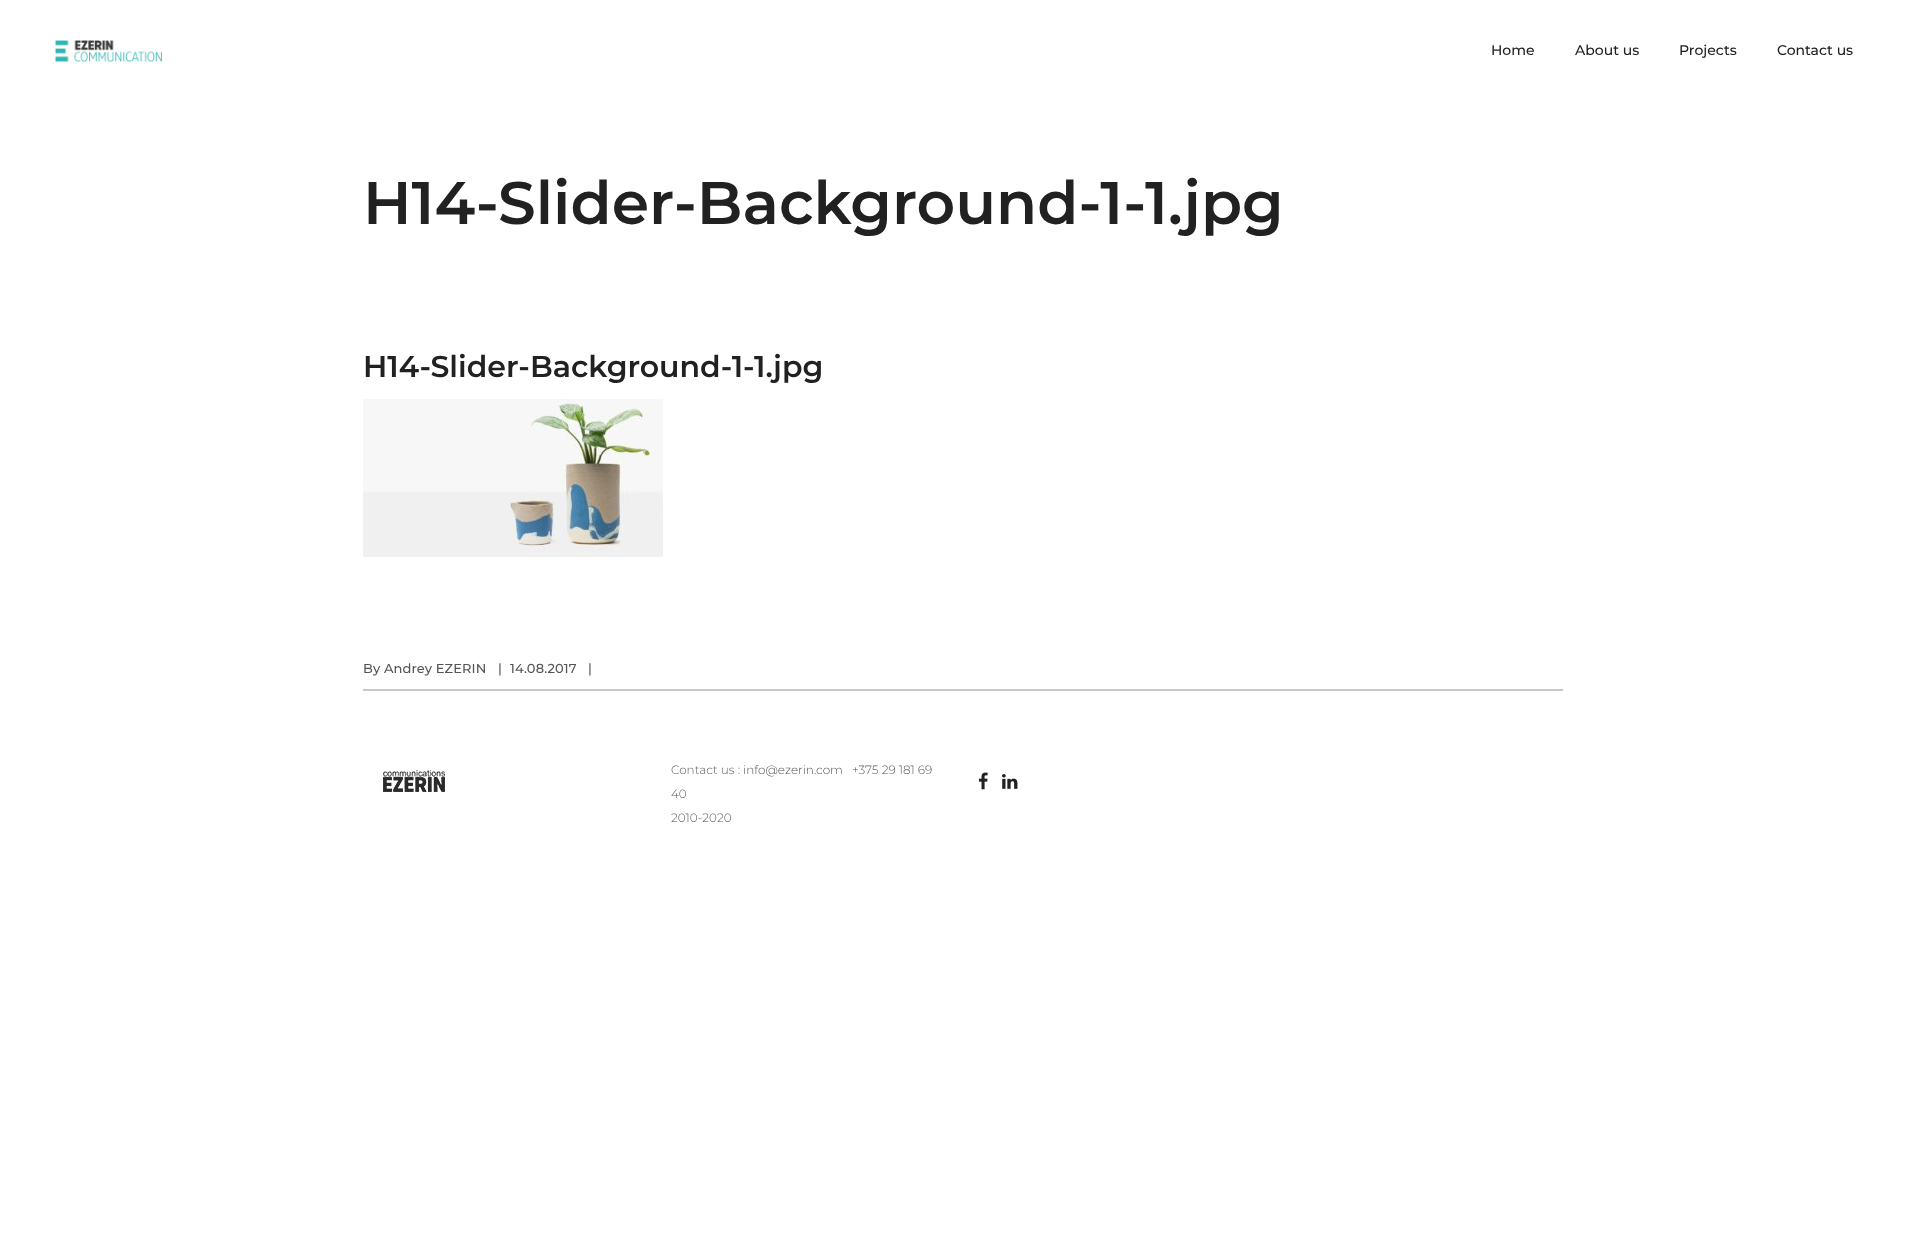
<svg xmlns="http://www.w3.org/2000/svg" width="1926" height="1255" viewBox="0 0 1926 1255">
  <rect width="100%" height="100%" fill="#fff"/>
  <image x="55" y="40" width="107" height="22" href="img/1.png"/>
  <path d="M363 689h1200v2H363z" fill="#c7c7c7"/>
  <image x="363" y="399" width="300" height="158" href="img/2.png"/>
  <image x="383" y="770" width="62" height="22" href="img/3.png"/>
  <image x="978" y="772" width="10" height="18" href="img/4.png"/>
  <image x="1002" y="774" width="16" height="15" href="img/5.png"/>
  <g font-family="Montserrat" font-size="14" font-weight="500" fill="#212121">
    <text x="1491" y="55">Home</text>
    <text x="1575" y="55">About us</text>
    <text x="1679" y="55">Projects</text>
    <text x="1777" y="55">Contact us</text>
  </g>
  <text x="363" y="224" font-family="Montserrat" font-size="60" font-weight="600" fill="#212121">H14-Slider-Background-1-1.jpg</text>
  <text x="363" y="377" font-family="Montserrat" font-size="30" font-weight="600" fill="#212121">H14-Slider-Background-1-1.jpg</text>
  <g font-family="Montserrat" font-size="13" font-weight="500" letter-spacing="0.1" fill="#555">
    <text x="363" y="673">By Andrey EZERIN</text>
    <text x="498" y="673">|</text>
    <text x="510" y="673">14.08.2017</text>
    <text x="588" y="673">|</text>
  </g>
  <text x="671" y="774" font-family="Montserrat" font-size="12" font-weight="300" fill="#5b5b5b">Contact us :</text>
  <text x="743" y="774" font-family="Montserrat" font-size="12" font-weight="300" fill="#555">info@ezerin.com</text>
  <g font-family="Montserrat" font-size="12" font-weight="300" fill="#5b5b5b">
    <text x="852" y="774">+375 29 181 69</text>
    <text x="671" y="798">40</text>
    <text x="671" y="822">2010-2020</text>
  </g>
</svg>
